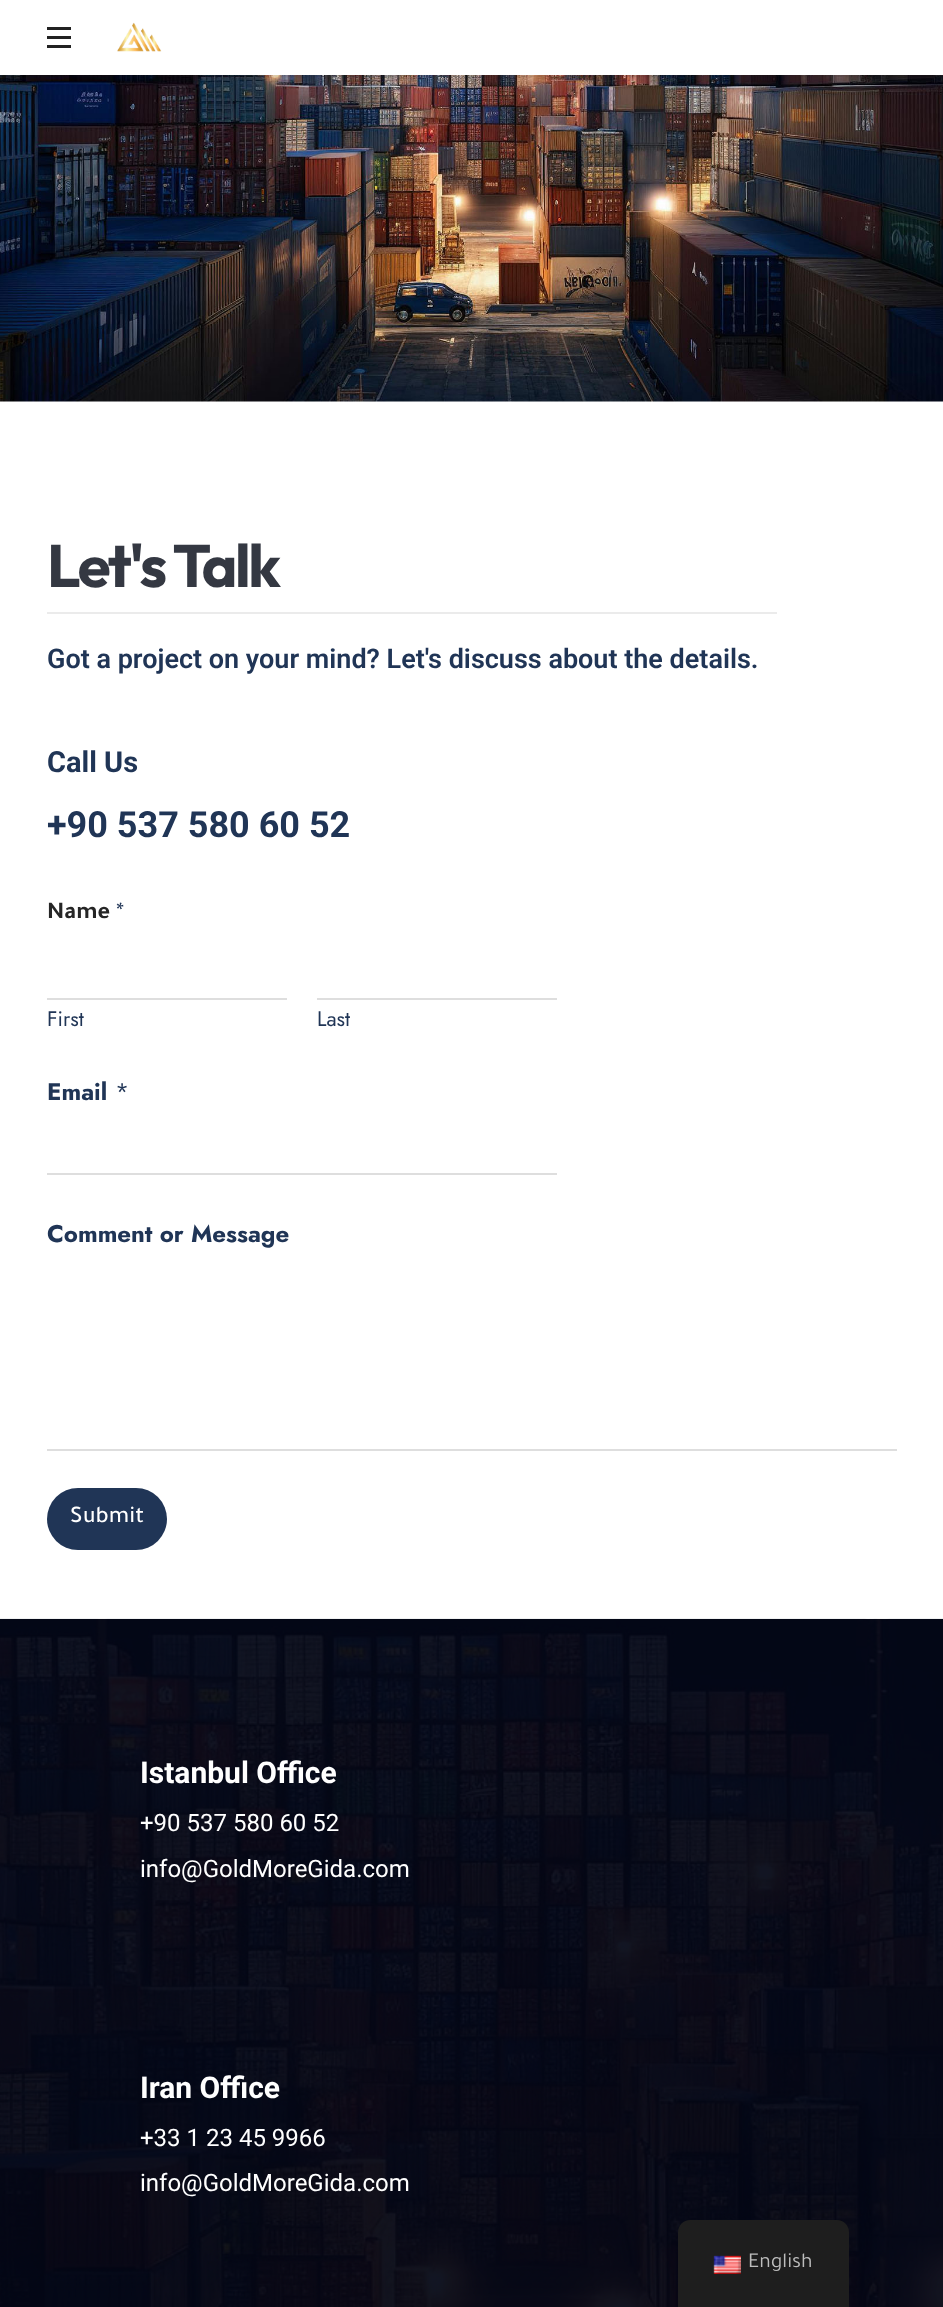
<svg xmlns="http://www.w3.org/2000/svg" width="943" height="2307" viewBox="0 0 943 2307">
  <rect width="100%" height="100%" fill="#fff"/>
  <image x="0" y="75" width="943" height="327" href="img/2.png"/>
  <path d="M69 75h791v2H69z" fill="#22222214"/>
  <path d="M0 0h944v75H0z" fill="#0000001a" filter="blur(6px)"/>
  <path d="M0 0h943v75H0z" fill="#fff"/>
  <path d="M47 36h24v3H47z" fill="#222"/>
  <path d="M47 27h24v3H47z" fill="#222"/>
  <path d="M47 45h24v3H47z" fill="#222"/>
  <image x="117" y="22" width="45" height="30" href="img/1.png"/>
  <path d="M47 612h730v2H47z" fill="#ebebeb"/>
  <path d="M47 998h240v2H47z" fill="#dedede"/>
  <path d="M317 998h240v2H317z" fill="#dedede"/>
  <path d="M47 1173h510v2H47z" fill="#dedede"/>
  <path d="M47 1449h850v2H47z" fill="#dedede"/>
  <rect x="47" y="1488" width="120" height="62" rx="31" fill="#203556"/>
  <path d="M0 1619h943v688H0z" fill="#040716"/>
  <image x="0" y="1618" width="943" height="689" href="img/3.png"/>
  <path d="M690 2220H837C843.5 2220 849 2225.5 849 2232V2307H678V2232C678 2225.5 683.5 2220 690 2220Z" fill="#1e1e1e"/>
  <image x="713" y="2255" width="28" height="19" href="img/4.png"/>
  <text x="47" y="587" font-family="Outfit" font-size="60" font-weight="bold" letter-spacing="-2.4" fill="#343842">Let's Talk</text>
  <text x="47" y="668" font-family="Roboto" font-size="27" font-weight="600" fill="#203556">Got a project on your mind? Let's discuss about the details.</text>
  <text x="47" y="772" font-family="Roboto" font-size="29" font-weight="bold" fill="#203556">Call Us</text>
  <text x="47" y="837" font-family="Roboto" font-size="36" font-weight="bold" fill="#203556">+90 537 580 60 52</text>
  <text x="47" y="918" font-family="Tajawal" font-size="24" font-weight="bold" fill="#262626">Name</text>
  <text x="116" y="918" font-family="Tajawal" font-size="24" fill="#203556">*</text>
  <g font-family="Jost" font-size="21" fill="#203556">
    <text x="47" y="1026">First</text>
    <text x="317" y="1026">Last</text>
  </g>
  <text x="47" y="1100" font-family="Jost" font-size="24" font-weight="bold" fill="#203556">Email</text>
  <text x="115" y="1100" font-family="Jost" font-size="24" fill="#203556">*</text>
  <text x="47" y="1242" font-family="Jost" font-size="24" font-weight="bold" fill="#203556">Comment or Message</text>
  <text x="70" y="1522" font-family="Tajawal" font-size="24" font-weight="500" fill="#fff">Submit</text>
  <text x="140" y="1783" font-family="Roboto" font-size="30" font-weight="bold" fill="#fff">Istanbul Office</text>
  <g font-family="Roboto" font-size="24" fill="#fff">
    <text x="140" y="1831">+90 537 580 60 52</text>
    <text x="140" y="1877">info@GoldMoreGida.com</text>
  </g>
  <text x="140" y="2098" font-family="Roboto" font-size="30" font-weight="bold" fill="#fff">Iran Office</text>
  <g font-family="Roboto" font-size="24" fill="#fff">
    <text x="140" y="2146">+33 1 23 45 9966</text>
    <text x="140" y="2191">info@GoldMoreGida.com</text>
  </g>
  <text x="748" y="2267" font-family="Tajawal" font-size="21.5" fill="#bdbdbd">English</text>
</svg>
